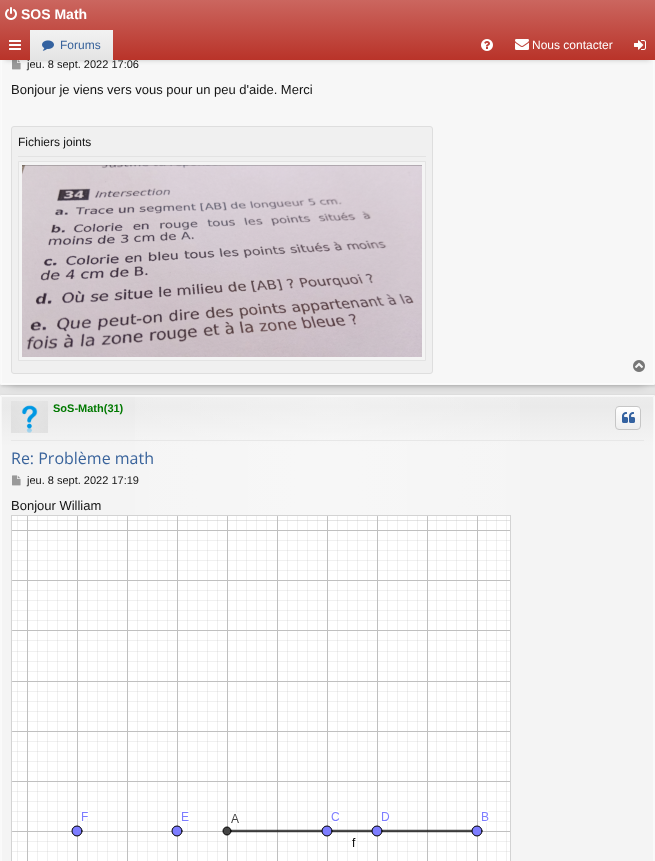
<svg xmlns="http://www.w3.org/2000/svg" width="655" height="861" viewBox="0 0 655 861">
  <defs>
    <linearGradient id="g1" gradientUnits="userSpaceOnUse" x1="328" y1="-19" x2="328" y2="384"><stop offset="0" stop-color="#eee"/><stop offset="0.02" stop-color="#ececec"/><stop offset="0.12" stop-color="#f7f7f7"/></linearGradient>
    <linearGradient id="g2" gradientUnits="userSpaceOnUse" x1="328" y1="0" x2="328" y2="60"><stop offset="0" stop-color="#cb665f"/><stop offset="1" stop-color="#b93329"/></linearGradient>
    <linearGradient id="g3" gradientUnits="userSpaceOnUse" x1="72" y1="30" x2="72" y2="60"><stop offset="0" stop-color="#f2f2f2"/><stop offset="1" stop-color="#e4e4e4"/></linearGradient>
    <linearGradient id="g4" gradientUnits="userSpaceOnUse" x1="327" y1="396" x2="328" y2="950"><stop offset="0" stop-color="#ececec"/><stop offset="0.02" stop-color="#eaeaea"/><stop offset="0.09" stop-color="#f4f4f4"/></linearGradient>
    <linearGradient id="g5" gradientUnits="userSpaceOnUse" x1="1" y1="673" x2="654" y2="673"><stop offset="0" stop-color="#fff" stop-opacity="0"/><stop offset="0.5" stop-color="#fff" stop-opacity="0.3"/><stop offset="1" stop-color="#fff" stop-opacity="0"/></linearGradient>
    <clipPath id="clip1"><rect x="615" y="406" width="26" height="24" rx="4"/></clipPath>
    <linearGradient id="g6" gradientUnits="userSpaceOnUse" x1="628" y1="407" x2="628" y2="429"><stop offset="0" stop-color="#fff"/><stop offset="1" stop-color="#eee"/></linearGradient>
  </defs>
  <rect width="100%" height="100%" fill="#e4e4e4"/>
  <path d="M10 0h635v385H10z" fill="#00000033" filter="blur(5px)"/>
  <path d="M1 -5h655v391H1z" fill="#00000026" filter="blur(1.5px)"/>
  <path d="M1 60h653v324H1z" fill="url(#g1)"/>
  <path d="M1.5 -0.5h652v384H1.5z" fill="none" stroke="#ffffff80"/>
  <path d="M0.5 -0.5h654v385H0.5z" fill="none" stroke="#f9f9f9"/>
  <image x="12" y="60" width="9" height="10" href="img/7.png"/>
  <path d="M5 10h645v50H5z" fill="#00000033" filter="blur(2.5px)"/>
  <path d="M0 0h655v60H0z" fill="url(#g2)"/>
  <image x="5" y="7" width="12" height="13" href="img/1.png"/>
  <image x="9" y="40" width="12" height="10" href="img/2.png"/>
  <path d="M30 30h83v30H30z" fill="url(#g3)"/>
  <image x="42" y="40" width="12" height="11" href="img/3.png"/>
  <image x="481" y="39" width="12" height="12" href="img/4.png"/>
  <image x="515" y="39" width="14" height="11" href="img/5.png"/>
  <image x="634" y="40" width="12" height="10" href="img/6.png"/>
  <rect x="11.5" y="126.5" width="421" height="247" rx="2.5" fill="#f0f0f0" stroke="#dedede"/>
  <path d="M18 156h408v1H18z" fill="#e3e3e3"/>
  <path d="M18.5 161.5h407v199H18.5z" fill="#f4f4f4" stroke="#e3e3e3"/>
  <image x="22" y="165" width="400" height="192" href="img/8.png"/>
  <image x="633" y="360" width="12" height="12" href="img/9.png"/>
  <path d="M1 396h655v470H1z" fill="#00000026" filter="blur(1.5px)"/>
  <path d="M1 396h653v465H1z" fill="url(#g4)"/>
  <path d="M135 396h385v465H135z" fill="url(#g5)"/>
  <path d="M1.5 396.5h652v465H1.5z" fill="none" stroke="#ffffff80"/>
  <path d="M0.5 395.5h654v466H0.5z" fill="none" stroke="#f9f9f9"/>
  <path d="M11 440h633v1H11z" fill="#e7e7e7"/>
  <image x="11" y="401" width="37" height="32" href="img/10.png"/>
  <g clip-path="url(#clip1)">
    <path d="M615 407h26v22H615z" fill="url(#g6)"/>
  </g>
  <rect x="615.5" y="406.5" width="25" height="23" rx="3.5" fill="none" stroke="#c6c6c6"/>
  <image x="622" y="412" width="13" height="11" href="img/11.png"/>
  <image x="12" y="475" width="9" height="11" href="img/12.png"/>
  <path d="M11 515h500v346H11z" fill="#d3d3d3"/>
  <image x="12" y="516" width="498" height="345" href="img/13.png"/>
  <text x="21" y="19" font-family="Liberation Sans" font-size="14" font-weight="bold" fill="#fff">SOS Math</text>
  <text x="60" y="49" font-family="Liberation Sans" font-size="12" fill="#39639b">Forums</text>
  <text x="532" y="49" font-family="Liberation Sans" font-size="12" fill="#fff">Nous contacter</text>
  <text x="27" y="68" font-family="Liberation Sans" font-size="11" fill="#141414">jeu. 8 sept. 2022 17:06</text>
  <text x="11" y="94" font-family="Liberation Sans" font-size="13" fill="#141414">Bonjour je viens vers vous pour un peu d'aide. Merci</text>
  <text x="18" y="146" font-family="Liberation Sans" font-size="12" fill="#141414">Fichiers joints</text>
  <text x="53" y="412" font-family="Liberation Sans" font-size="11" font-weight="bold" fill="#007900">SoS-Math(31)</text>
  <text x="11" y="464" font-family="Open Sans" font-size="16" fill="#39639b">Re: Problème math</text>
  <text x="27" y="484" font-family="Liberation Sans" font-size="11" fill="#141414">jeu. 8 sept. 2022 17:19</text>
  <text x="11" y="510" font-family="Liberation Sans" font-size="13" fill="#141414">Bonjour William</text>
</svg>
